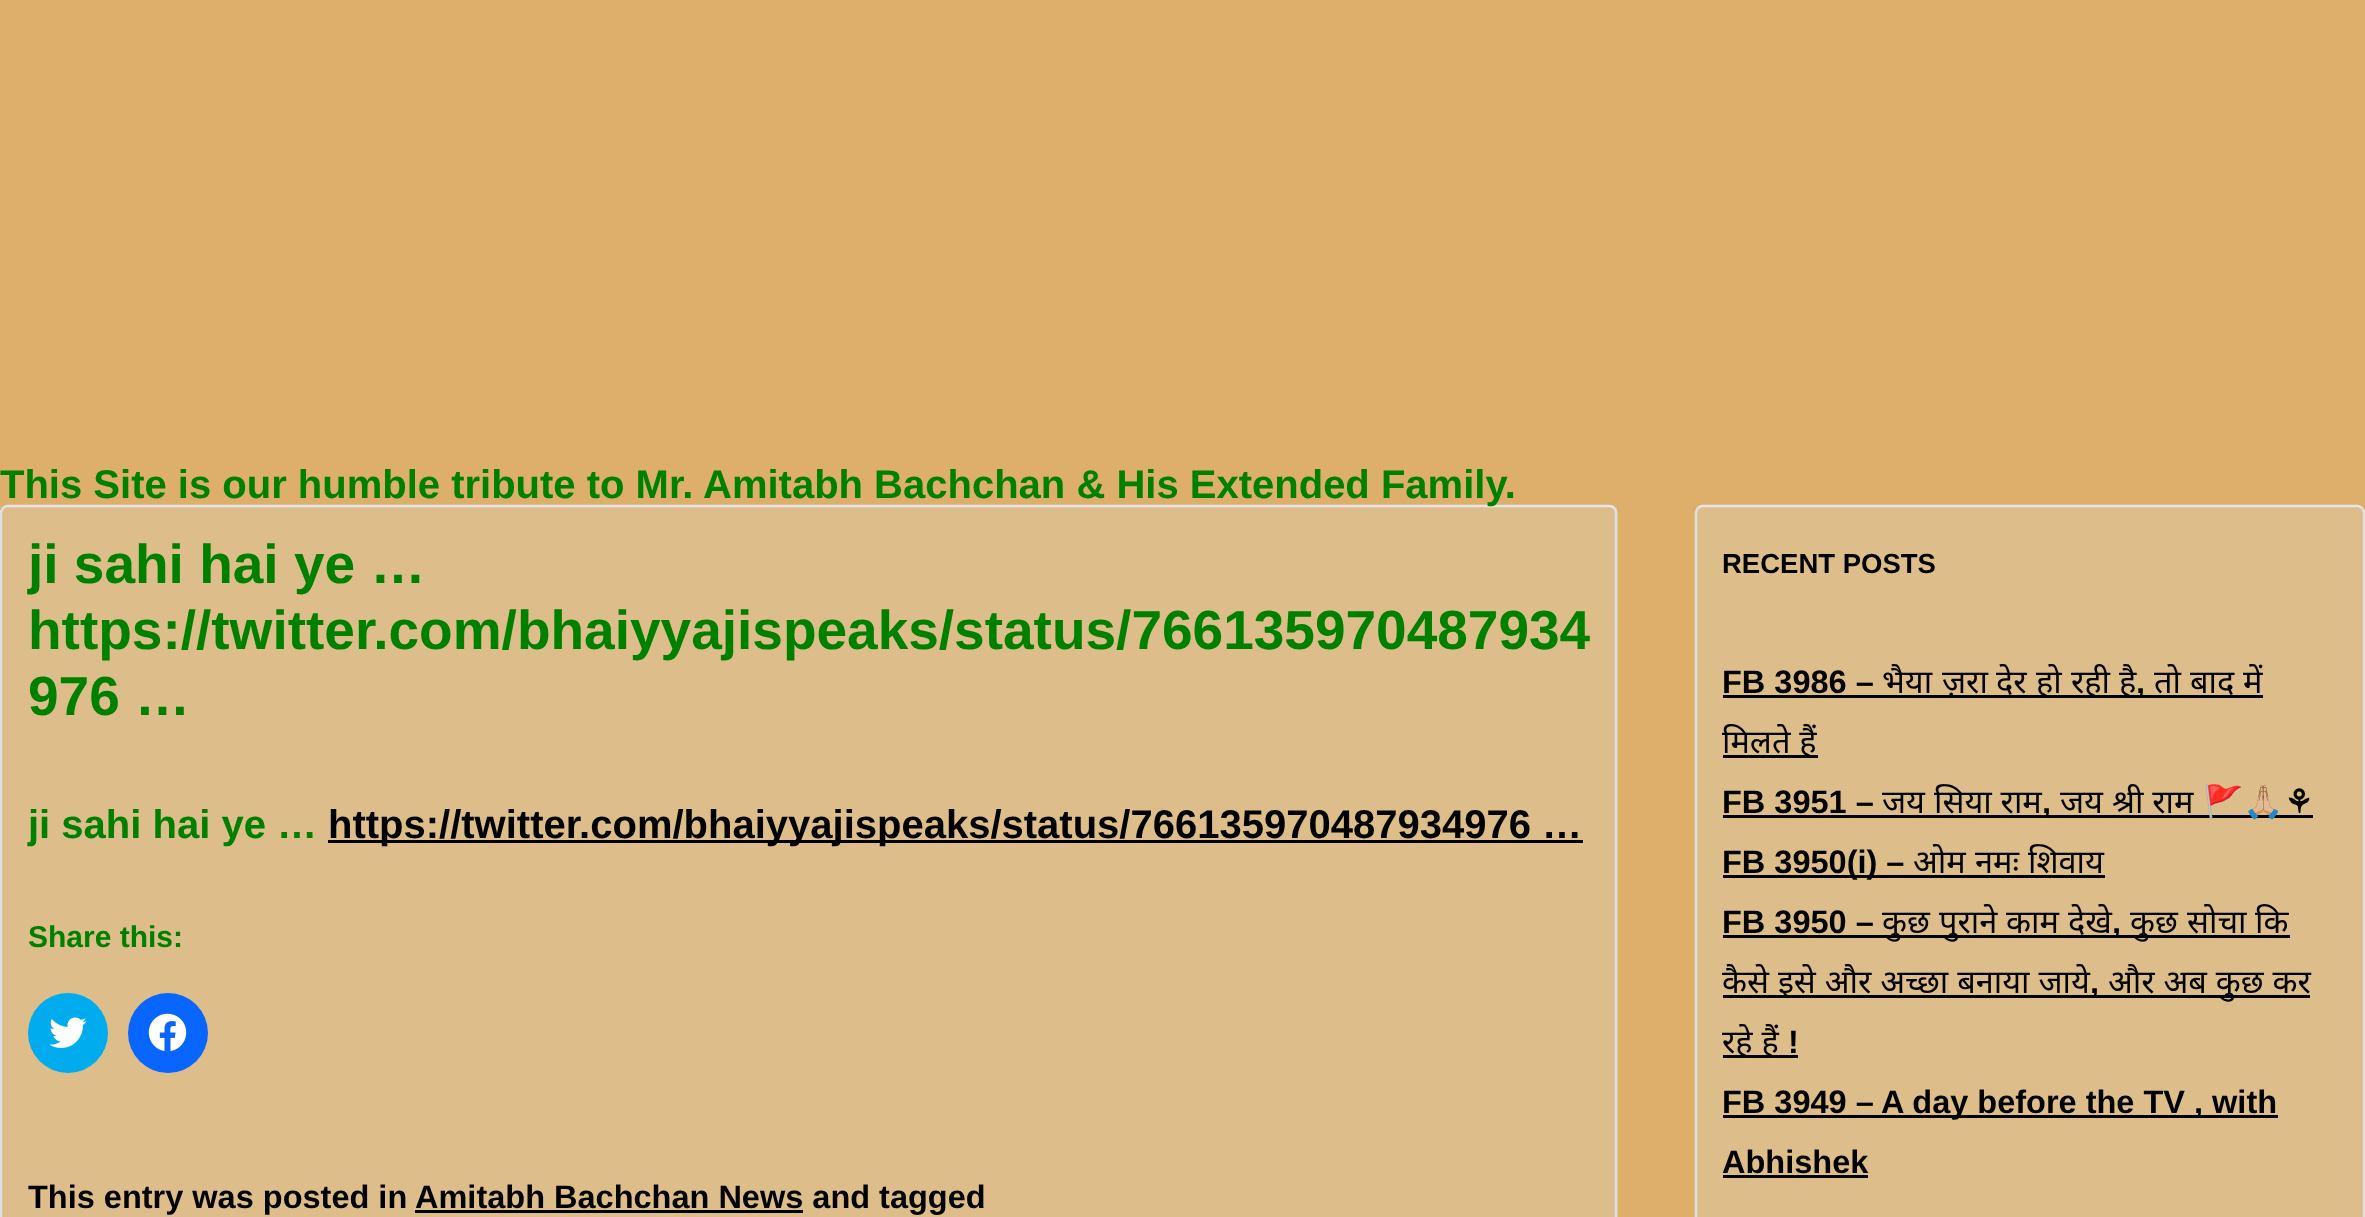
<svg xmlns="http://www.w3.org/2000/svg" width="2365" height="1217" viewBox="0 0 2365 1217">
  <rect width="100%" height="100%" fill="#ddaf6a"/>
  <rect y="505" width="1618" height="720" rx="8" fill="#ddbd89"/>
  <path d="M3 508C4.5 507 6 506 7.5 506H1610C1611.5 506 1613 507 1614.5 508" fill="none" stroke="#e5e6e9" stroke-width="2.5"/>
  <path d="M1614.5 508C1615.5 509.5 1616 511 1616 512.5V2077.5C1616 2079 1615.5 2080.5 1614.5 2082" fill="none" stroke="#dfe0e4" stroke-width="2.5"/>
  <path d="M3 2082C2 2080.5 1.5 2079 1 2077.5V512.5C1 511 2 509.5 3 508" fill="none" stroke="#dfe0e4" stroke-width="2.5"/>
  <path d="M328 840h1255v3H328z" fill="#010101"/>
  <circle cx="68" cy="1033" r="40" fill="#00acee"/>
  <image x="49" y="1017" width="38" height="31" href="img/1.png"/>
  <circle cx="168" cy="1033" r="40" fill="#0866ff"/>
  <image x="148" y="1013" width="39" height="38" href="img/2.png"/>
  <path d="M415 1210h388v3H415z" fill="#010101"/>
  <rect x="1695" y="505" width="670" height="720" rx="8" fill="#ddbd89"/>
  <path d="M1698 508C1699.5 507 1701 506 1702.5 506H2357.5C2359 506 2360.5 507 2362 508" fill="none" stroke="#e5e6e9" stroke-width="2.5"/>
  <path d="M2362 508C2363 509.5 2364 511 2364 512.5V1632.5C2364 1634 2363 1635.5 2362 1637" fill="none" stroke="#dfe0e4" stroke-width="2.5"/>
  <path d="M1698 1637C1697 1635.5 1696 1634 1696 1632.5V512.5C1696 511 1697 509.5 1698 508" fill="none" stroke="#dfe0e4" stroke-width="2.5"/>
  <path d="M1723 695h540v3H1723z" fill="#010101"/>
  <path d="M1723 755h95v3H1723z" fill="#010101"/>
  <path d="M1723 815h590v3H1723z" fill="#010101"/>
  <path d="M1723 875h382v3H1723z" fill="#010101"/>
  <path d="M1723 935h567v3H1723z" fill="#010101"/>
  <path d="M1723 995h587v3H1723z" fill="#010101"/>
  <path d="M1723 1055h75v3H1723z" fill="#010101"/>
  <path d="M1723 1115h555v3H1723z" fill="#010101"/>
  <path d="M1723 1175h145v3H1723z" fill="#010101"/>
  <text x="0" y="498" font-family="Liberation Sans" font-size="40" font-weight="bold" fill="#008000">This Site is our humble tribute to Mr. Amitabh Bachchan &amp; His Extended Family.</text>
  <g font-family="Liberation Sans" font-size="55" font-weight="bold" fill="#008000">
    <text x="28" y="583">ji sahi hai ye …</text>
    <text x="28" y="649">https://twitter.com/bhaiyyajispeaks/status/766135970487934</text>
    <text x="28" y="715">976 …</text>
  </g>
  <text x="28" y="838" font-family="Liberation Sans" font-size="40" font-weight="bold" fill="#008000">ji sahi hai ye …</text>
  <text x="328" y="838" font-family="Liberation Sans" font-size="40" font-weight="bold" fill="#010101">https://twitter.com/bhaiyyajispeaks/status/766135970487934976 …</text>
  <text x="28" y="947" font-family="Liberation Sans" font-size="30" font-weight="bold" fill="#008000">Share this:</text>
  <g font-family="Liberation Sans" font-size="32.5" font-weight="bold" fill="#010101">
    <text x="28" y="1208">This entry was posted in</text>
    <text x="415" y="1208">Amitabh Bachchan News and tagged</text>
  </g>
  <text x="1722" y="573" font-family="Liberation Sans" font-size="27.5" font-weight="bold" fill="#010101">RECENT POSTS</text>
  <text x="1722" y="693" font-family="Liberation Sans" font-size="32.5" font-weight="bold" fill="#010101">FB 3986 –</text>
  <g font-family="Noto Sans" font-size="32.5" fill="#010101">
    <text x="1882" y="693">भैया</text>
    <text x="1942" y="693">ज़रा</text>
    <text x="1996" y="693">देर</text>
    <text x="2036" y="693">हो</text>
    <text x="2071" y="693">रही</text>
    <text x="2119" y="693">है</text>
  </g>
  <text x="2136" y="693" font-family="Liberation Sans" font-size="32.5" font-weight="bold" fill="#010101">,</text>
  <g font-family="Noto Sans" font-size="32.5" fill="#010101">
    <text x="2154" y="693">तो</text>
    <text x="2190" y="693">बाद</text>
    <text x="2243" y="693">में</text>
    <text x="1722" y="753" word-spacing="0.5">मिलते हैं</text>
  </g>
  <text x="1722" y="813" font-family="Liberation Sans" font-size="32.5" font-weight="bold" fill="#010101">FB 3951 –</text>
  <g font-family="Noto Sans" font-size="32.5" fill="#010101">
    <text x="1882" y="813">जय</text>
    <text x="1934" y="813" word-spacing="0.5">सिया राम</text>
  </g>
  <text x="2042" y="813" font-family="Liberation Sans" font-size="32.5" font-weight="bold" fill="#010101">,</text>
  <text x="2060" y="813" word-spacing="0.5" font-family="Noto Sans" font-size="32.5" fill="#010101">जय श्री राम</text>
  <text x="2203" y="813" font-family="Noto Color Emoji" font-size="32.5" font-weight="bold" fill="#010101">🚩🙏🏼</text>
  <text x="2284" y="813" font-family="DejaVu Sans" font-size="32.5" font-weight="bold" fill="#010101">⚘</text>
  <text x="1722" y="873" font-family="Liberation Sans" font-size="32.5" font-weight="bold" fill="#010101">FB 3950(i) –</text>
  <g font-family="Noto Sans" font-size="32.5" fill="#010101">
    <text x="1913" y="873">ओम</text>
    <text x="1975" y="873">नमः</text>
    <text x="2028" y="873">शिवाय</text>
  </g>
  <text x="1722" y="933" font-family="Liberation Sans" font-size="32.5" font-weight="bold" fill="#010101">FB 3950 –</text>
  <g font-family="Noto Sans" font-size="32.5" fill="#010101">
    <text x="1882" y="933">कुछ</text>
    <text x="1939" y="933">पुराने</text>
    <text x="2006" y="933">काम</text>
    <text x="2068" y="933">देखे</text>
    <text x="2187" y="933">सोचा</text>
    <text x="2255" y="933">कि</text>
  </g>
  <text x="2112" y="933" font-family="Liberation Sans" font-size="32.5" font-weight="bold" fill="#010101">,</text>
  <g font-family="Noto Sans" font-size="32.5" fill="#010101">
    <text x="2130" y="933">कुछ</text>
    <text x="1722" y="993" word-spacing="0.5">कैसे इसे और अच्छा बनाया जाये</text>
  </g>
  <text x="2090" y="993" font-family="Liberation Sans" font-size="32.5" font-weight="bold" fill="#010101">,</text>
  <g font-family="Noto Sans" font-size="32.5" fill="#010101">
    <text x="2108" y="993" word-spacing="0.5">और अब कुछ कर</text>
    <text x="1722" y="1053" word-spacing="0.5">रहे हैं</text>
  </g>
  <g font-family="Liberation Sans" font-size="32.5" font-weight="bold" fill="#010101">
    <text x="1788" y="1053">!</text>
    <text x="1722" y="1113">FB 3949 –</text>
    <text x="1881" y="1113">A day before the TV , with</text>
    <text x="1722" y="1173">Abhishek</text>
  </g>
</svg>
